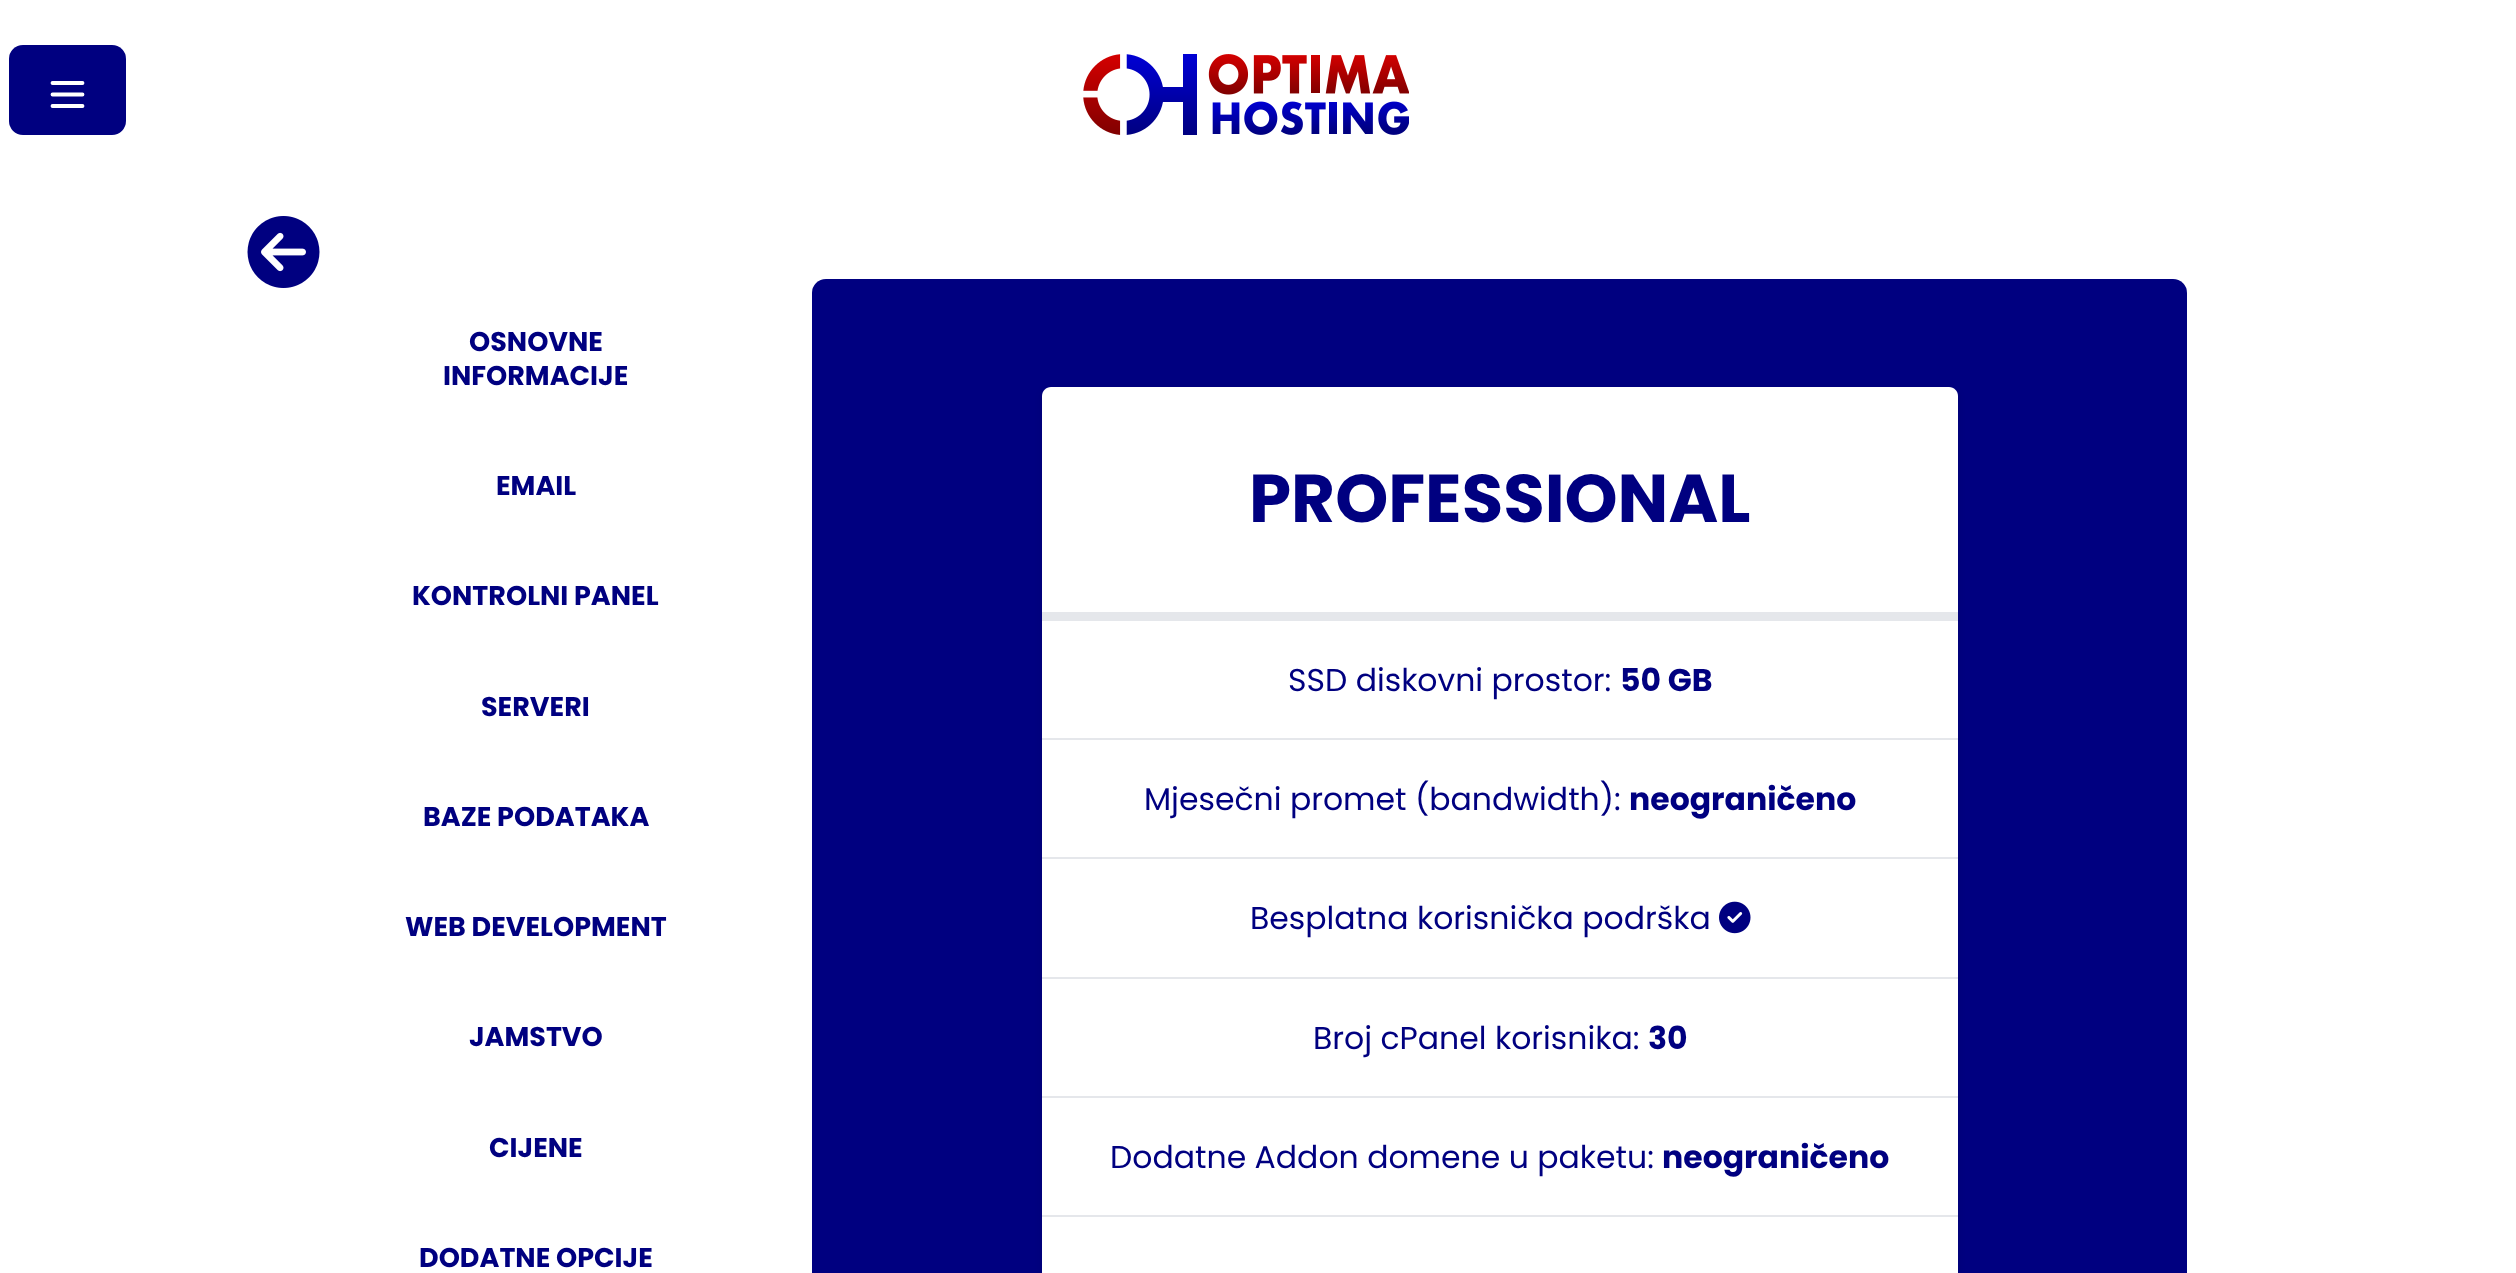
<svg xmlns="http://www.w3.org/2000/svg" width="2516" height="1273" viewBox="0 0 2516 1273">
  <rect width="100%" height="100%" fill="#fff"/>
  <rect x="9" y="45" width="117" height="90" rx="14" fill="#000080"/>
  <path d="M52.5 83H82.5M52.5 94.5H82.5M52.5 106H82.5" fill="none" stroke="#fff" stroke-width="3.8" stroke-linecap="round" stroke-linejoin="round"/>
  <image x="1083" y="54" width="326" height="81" href="img/1.png"/>
  <image x="247" y="216" width="73" height="72" href="img/2.png"/>
  <rect x="812" y="279" width="1375" height="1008" rx="14" fill="#000080"/>
  <rect x="1042" y="389" width="916" height="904" rx="9" fill="#0000001a" filter="blur(3.5px)"/>
  <path d="M1051 387H1949C1954 387 1958 391 1958 396V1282H1042V396C1042 391 1046 387 1051 387Z" fill="#fff"/>
  <path d="M1042 612h916v9H1042z" fill="#e5e7eb"/>
  <path d="M1042 738h916v2H1042z" fill="#e5e7eb"/>
  <path d="M1042 857h916v2H1042z" fill="#e5e7eb"/>
  <path d="M1042 977h916v2H1042z" fill="#e5e7eb"/>
  <image x="1719" y="901" width="32" height="33" href="img/3.png"/>
  <path d="M1042 1096h916v2H1042z" fill="#e5e7eb"/>
  <path d="M1042 1215h916v2H1042z" fill="#e5e7eb"/>
  <g font-family="Poppins" font-size="27" font-weight="bold" fill="#000080">
    <text x="469" y="351">OSNOVNE</text>
    <text x="443" y="385">INFORMACIJE</text>
    <text x="496" y="495">EMAIL</text>
    <text x="412" y="605">KONTROLNI PANEL</text>
    <text x="481" y="716">SERVERI</text>
    <text x="423" y="826">BAZE PODATAKA</text>
    <text x="405" y="936">WEB DEVELOPMENT</text>
    <text x="469" y="1046">JAMSTVO</text>
    <text x="489" y="1157">CIJENE</text>
    <text x="419" y="1267">DODATNE OPCIJE</text>
  </g>
  <text x="1249" y="522" font-family="Poppins" font-size="67.5" font-weight="bold" fill="#000080">PROFESSIONAL</text>
  <text x="1288" y="691" font-family="Poppins" font-size="31.5" fill="#000080">SSD diskovni prostor:</text>
  <text x="1620" y="691" font-family="Poppins" font-size="31.5" font-weight="bold" fill="#000080">50 GB</text>
  <text x="1144" y="810" font-family="Poppins" font-size="31.5" fill="#000080">Mjesečni promet (bandwidth):</text>
  <text x="1629" y="810" font-family="Poppins" font-size="31.5" font-weight="bold" fill="#000080">neograničeno</text>
  <g font-family="Poppins" font-size="31.5" fill="#000080">
    <text x="1250" y="929">Besplatna korisnička podrška</text>
    <text x="1313" y="1049">Broj cPanel korisnika:</text>
  </g>
  <text x="1648" y="1049" font-family="Poppins" font-size="31.5" font-weight="bold" fill="#000080">30</text>
  <text x="1110" y="1168" font-family="Poppins" font-size="31.5" fill="#000080">Dodatne Addon domene u paketu:</text>
  <text x="1662" y="1168" font-family="Poppins" font-size="31.5" font-weight="bold" fill="#000080">neograničeno</text>
</svg>
